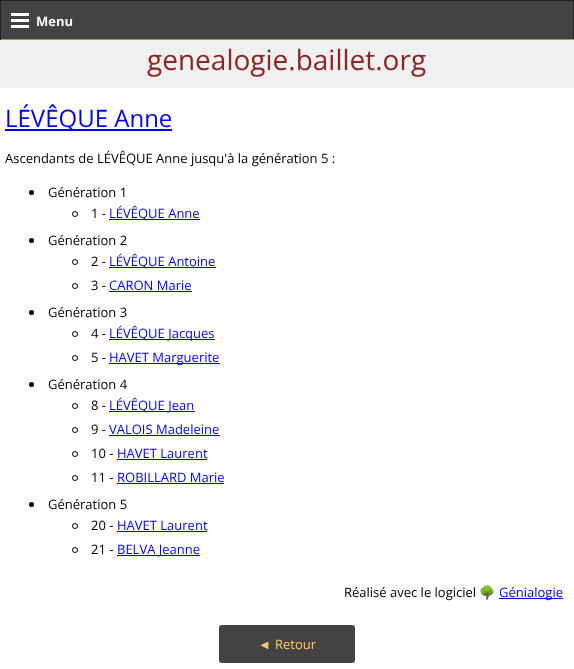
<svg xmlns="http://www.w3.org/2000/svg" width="574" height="669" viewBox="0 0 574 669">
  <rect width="100%" height="100%" fill="#f0f0f0"/>
  <path d="M1 1h572v38H1z" fill="#434343"/>
  <image x="11" y="13" width="18" height="15" href="img/1.png"/>
  <path d="M0 0h574v1H0z" fill="#222"/>
  <path d="M573 0h1v40H573z" fill="#222"/>
  <path d="M0 39h574v1H0z" fill="#b29863"/>
  <path d="M0 0h1v40H0z" fill="#222"/>
  <path d="M0 88h574v581H0z" fill="#fff"/>
  <path d="M5 129h167v2H5z" fill="#00e"/>
  <circle cx="31.5" cy="192.5" r="2.5" fill="#000"/>
  <circle cx="75" cy="214" r="2.5" fill="none" stroke="#000"/>
  <path d="M109 219h91v1H109z" fill="#00e"/>
  <circle cx="31.5" cy="240.5" r="2.5" fill="#000"/>
  <circle cx="75" cy="262" r="2.5" fill="none" stroke="#000"/>
  <path d="M109 267h107v1H109z" fill="#00e"/>
  <circle cx="75" cy="286" r="2.5" fill="none" stroke="#000"/>
  <path d="M109 291h83v1H109z" fill="#00e"/>
  <circle cx="31.5" cy="312.5" r="2.5" fill="#000"/>
  <circle cx="75" cy="334" r="2.5" fill="none" stroke="#000"/>
  <path d="M109 339h106v1H109z" fill="#00e"/>
  <circle cx="75" cy="358" r="2.5" fill="none" stroke="#000"/>
  <path d="M109 363h111v1H109z" fill="#00e"/>
  <circle cx="31.5" cy="384.5" r="2.5" fill="#000"/>
  <circle cx="75" cy="406" r="2.5" fill="none" stroke="#000"/>
  <path d="M109 411h86v1H109z" fill="#00e"/>
  <circle cx="75" cy="430" r="2.5" fill="none" stroke="#000"/>
  <path d="M109 435h111v1H109z" fill="#00e"/>
  <circle cx="75" cy="454" r="2.5" fill="none" stroke="#000"/>
  <path d="M117 459h90v1H117z" fill="#00e"/>
  <circle cx="75" cy="478" r="2.5" fill="none" stroke="#000"/>
  <path d="M117 483h107v1H117z" fill="#00e"/>
  <circle cx="31.5" cy="504.5" r="2.5" fill="#000"/>
  <circle cx="75" cy="526" r="2.5" fill="none" stroke="#000"/>
  <path d="M117 531h90v1H117z" fill="#00e"/>
  <circle cx="75" cy="550" r="2.5" fill="none" stroke="#000"/>
  <path d="M117 555h83v1H117z" fill="#00e"/>
  <path d="M499 598h64v1H499z" fill="#00e"/>
  <rect x="219" y="625" width="136" height="38" rx="3" fill="#434343"/>
  <text x="36" y="26" font-family="Open Sans" font-size="13" font-weight="bold" fill="#fafafa">Menu</text>
  <text x="147" y="70" font-family="Open Sans" font-size="28" fill="#8c2525">genealogie.baillet.org</text>
  <text x="5" y="127" font-family="Open Sans" font-size="24" fill="#00e">LÉVÊQUE Anne</text>
  <g font-family="Open Sans" font-size="13" fill="#000">
    <text x="5" y="163">Ascendants de LÉVÊQUE Anne jusqu'à la génération 5 :</text>
    <text x="48" y="197">Génération 1</text>
    <text x="91" y="218">1 -</text>
  </g>
  <text x="109" y="218" font-family="Open Sans" font-size="13" fill="#00e">LÉVÊQUE Anne</text>
  <g font-family="Open Sans" font-size="13" fill="#000">
    <text x="48" y="245">Génération 2</text>
    <text x="91" y="266">2 -</text>
  </g>
  <text x="109" y="266" font-family="Open Sans" font-size="13" fill="#00e">LÉVÊQUE Antoine</text>
  <text x="91" y="290" font-family="Open Sans" font-size="13" fill="#000">3 -</text>
  <text x="109" y="290" font-family="Open Sans" font-size="13" fill="#00e">CARON Marie</text>
  <g font-family="Open Sans" font-size="13" fill="#000">
    <text x="48" y="317">Génération 3</text>
    <text x="91" y="338">4 -</text>
  </g>
  <text x="109" y="338" font-family="Open Sans" font-size="13" fill="#00e">LÉVÊQUE Jacques</text>
  <text x="91" y="362" font-family="Open Sans" font-size="13" fill="#000">5 -</text>
  <text x="109" y="362" font-family="Open Sans" font-size="13" fill="#00e">HAVET Marguerite</text>
  <g font-family="Open Sans" font-size="13" fill="#000">
    <text x="48" y="389">Génération 4</text>
    <text x="91" y="410">8 -</text>
  </g>
  <text x="109" y="410" font-family="Open Sans" font-size="13" fill="#00e">LÉVÊQUE Jean</text>
  <text x="91" y="434" font-family="Open Sans" font-size="13" fill="#000">9 -</text>
  <text x="109" y="434" font-family="Open Sans" font-size="13" fill="#00e">VALOIS Madeleine</text>
  <text x="91" y="458" font-family="Open Sans" font-size="13" fill="#000">10 -</text>
  <text x="117" y="458" font-family="Open Sans" font-size="13" fill="#00e">HAVET Laurent</text>
  <text x="91" y="482" font-family="Open Sans" font-size="13" fill="#000">11 -</text>
  <text x="117" y="482" font-family="Open Sans" font-size="13" fill="#00e">ROBILLARD Marie</text>
  <g font-family="Open Sans" font-size="13" fill="#000">
    <text x="48" y="509">Génération 5</text>
    <text x="91" y="530">20 -</text>
  </g>
  <text x="117" y="530" font-family="Open Sans" font-size="13" fill="#00e">HAVET Laurent</text>
  <text x="91" y="554" font-family="Open Sans" font-size="13" fill="#000">21 -</text>
  <text x="117" y="554" font-family="Open Sans" font-size="13" fill="#00e">BELVA Jeanne</text>
  <text x="344" y="597" font-family="Open Sans" font-size="13" fill="#000">Réalisé avec le logiciel</text>
  <text x="479" y="597" font-family="Noto Color Emoji" font-size="13" fill="#000">🌳</text>
  <text x="499" y="597" font-family="Open Sans" font-size="13" fill="#00e">Génialogie</text>
  <text x="258" y="649" font-family="Liberation Sans" font-size="13" fill="#ffcb60">◄</text>
  <text x="275" y="649" font-family="Open Sans" font-size="13" fill="#ffcb60">Retour</text>
</svg>
